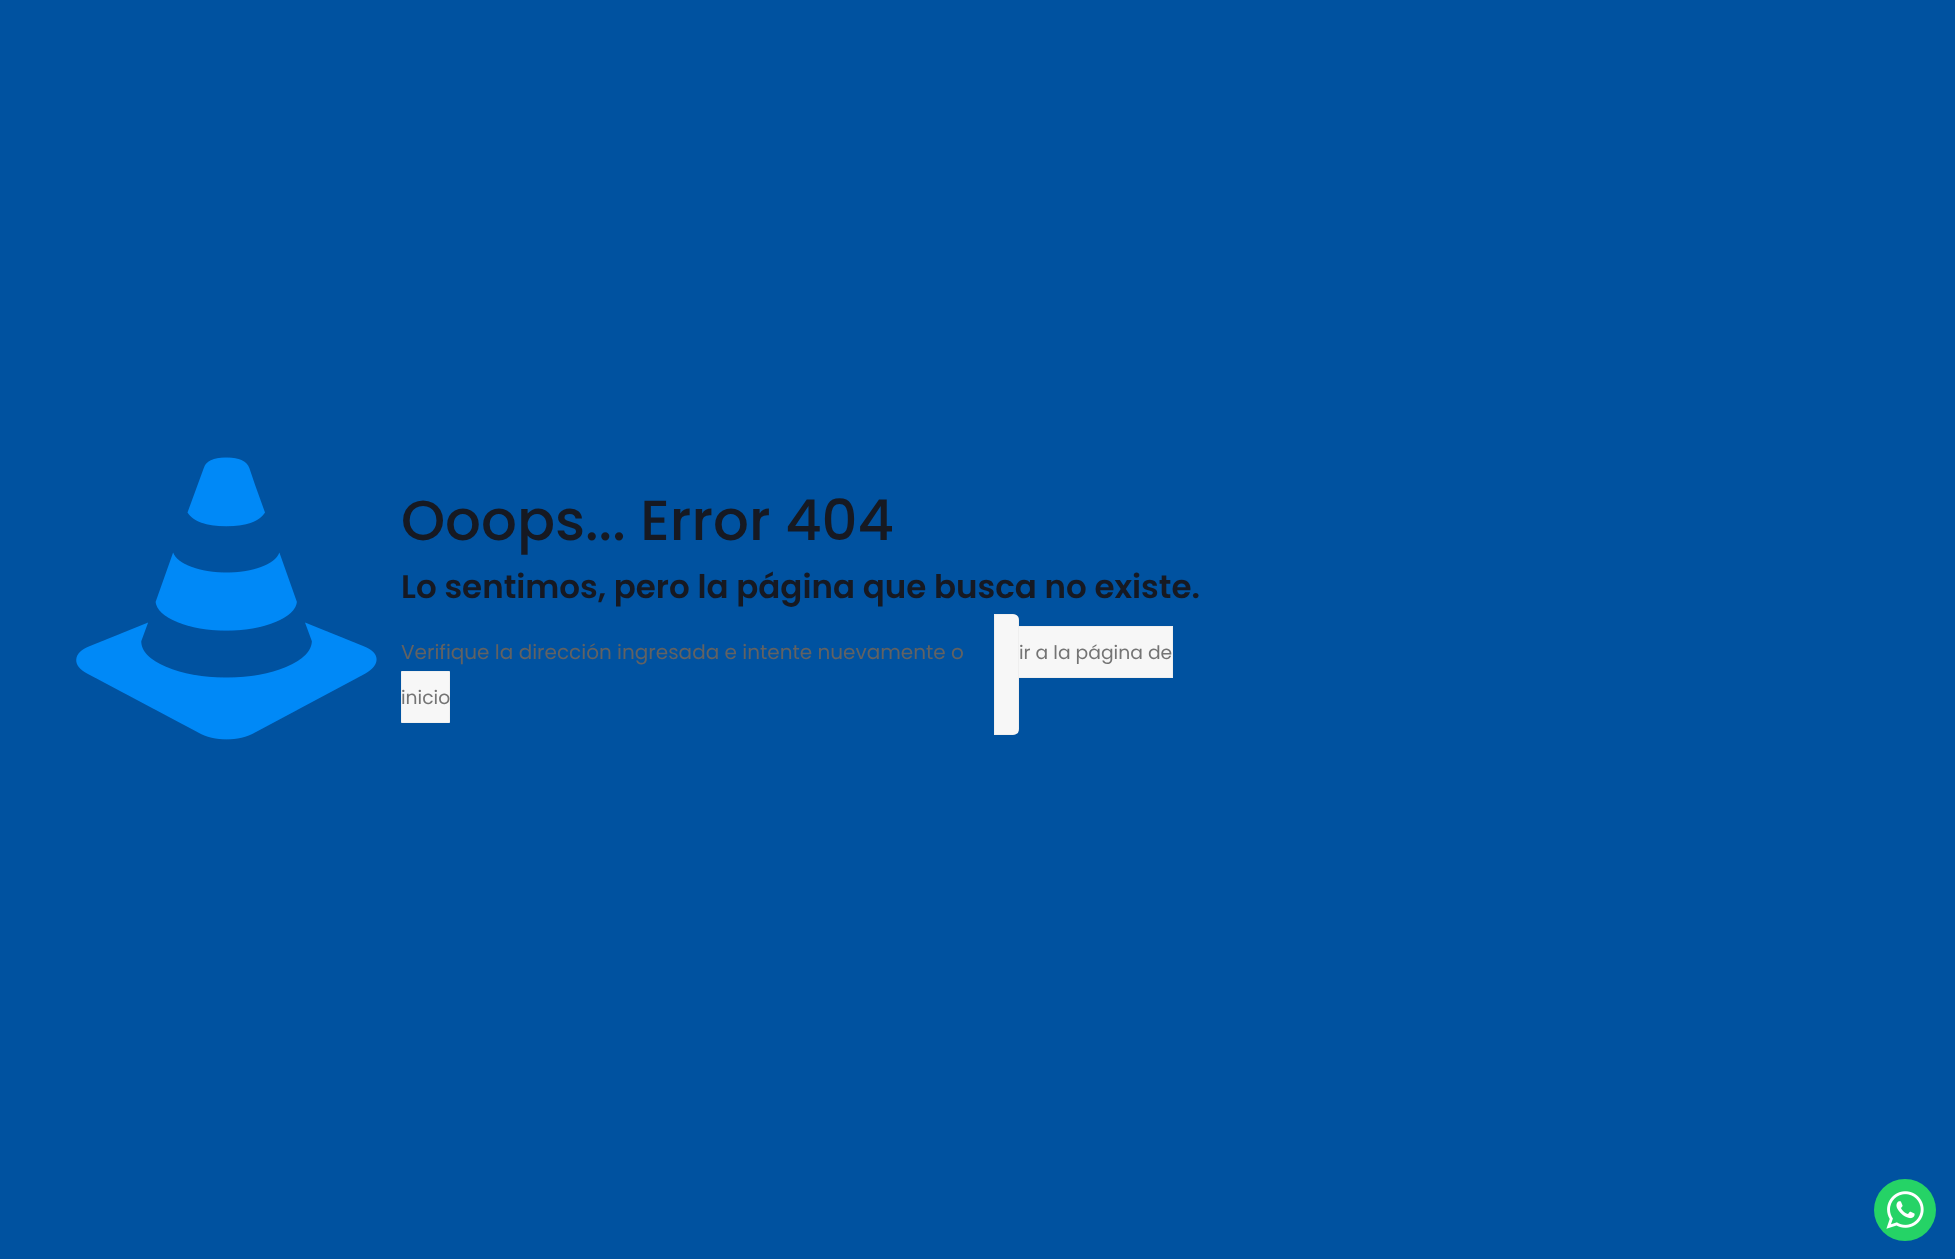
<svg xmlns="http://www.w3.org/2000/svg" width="1955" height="1259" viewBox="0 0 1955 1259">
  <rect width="100%" height="100%" fill="#0052a0"/>
  <image x="76" y="457" width="301" height="283" href="img/1.png"/>
  <path d="M1019 626h154v52H1019z" fill="#f7f7f7"/>
  <path d="M994.5 626.5h178v51H994.5z" fill="none" stroke="#00000008"/>
  <path d="M994 614H1013C1016.5 614 1019 616.5 1019 620V729C1019 732.5 1016.5 735 1013 735H994Z" fill="#f7f7f7"/>
  <path d="M994.5 614.5h24v120H994.5z" fill="none" stroke="#00000008"/>
  <path d="M401.5 671.5h48v51H401.5z" fill="#f7f7f7" stroke="#f0f0f0"/>
  <circle cx="1905" cy="1210" r="31" fill="#25d366"/>
  <image x="1886" y="1191" width="38" height="38" href="img/2.png"/>
  <text x="401" y="540" font-family="Poppins" font-size="56.25" font-weight="500" fill="#161922">Ooops... Error 404</text>
  <text x="401" y="598" font-family="Poppins" font-size="32.5" font-weight="600" fill="#161922">Lo sentimos, pero la página que busca no existe.</text>
  <text x="401" y="659" font-family="Poppins" font-size="20" fill="#626262">Verifique la dirección ingresada e intente nuevamente o</text>
  <g font-family="Poppins" font-size="18.75" fill="#747474">
    <text x="1019" y="659">ir a la página de</text>
    <text x="401" y="704">inicio</text>
  </g>
</svg>
